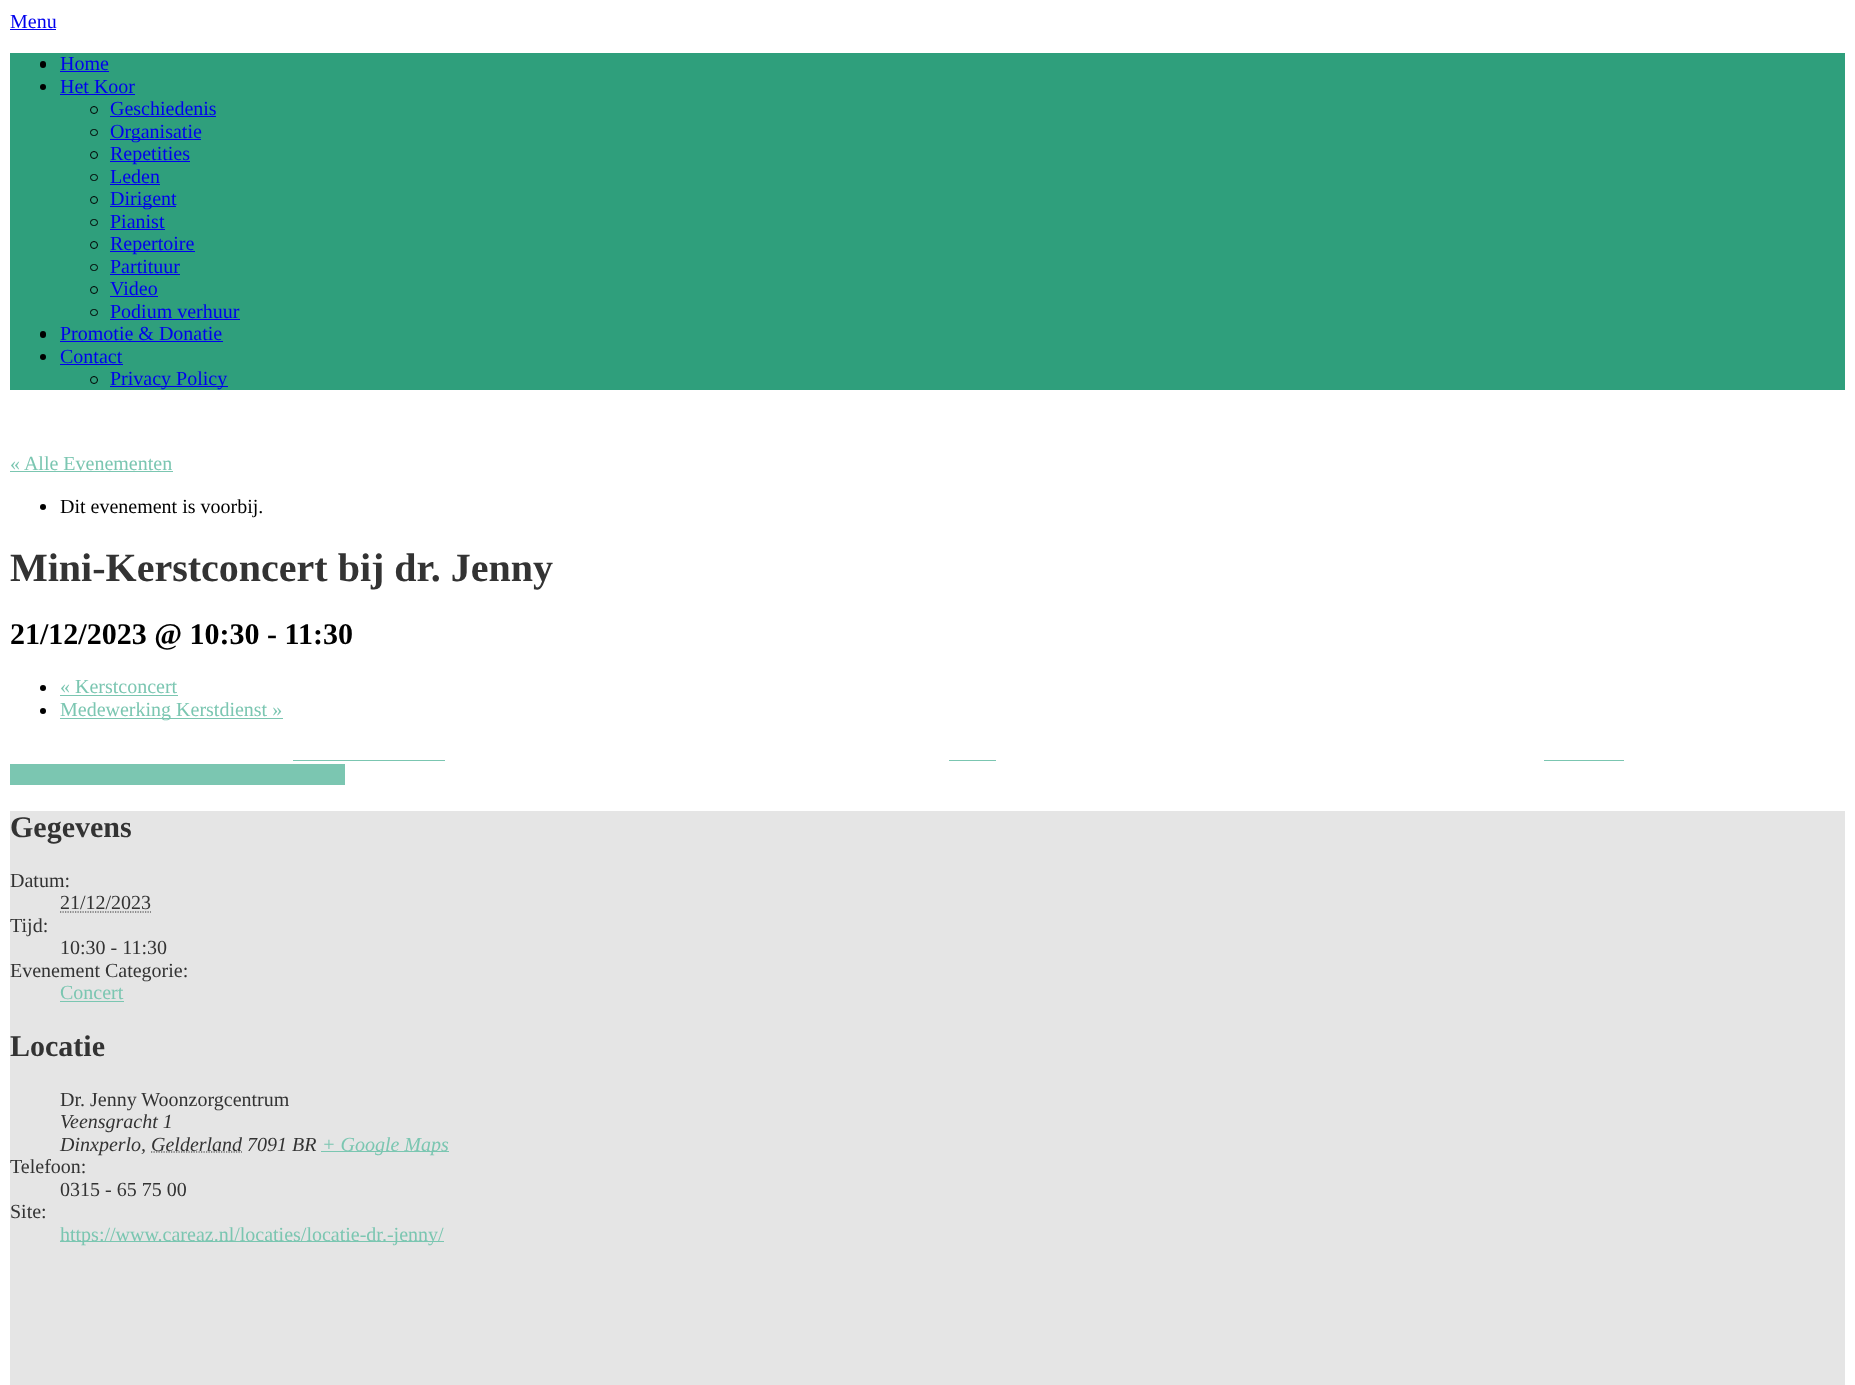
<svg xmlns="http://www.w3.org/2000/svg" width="1855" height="1385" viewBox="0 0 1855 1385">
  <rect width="100%" height="100%" fill="#fff"/>
  <path d="M10 29h46v1H10z" fill="#00e"/>
  <path d="M10 53h1835v337H10z" fill="#2f9f7c"/>
  <rect x="40" y="61" width="6" height="7" rx="3" fill="#000"/>
  <path d="M60 71h49v1H60z" fill="#00e"/>
  <circle cx="43" cy="87" r="3" fill="#000"/>
  <path d="M60 94h75v1H60z" fill="#00e"/>
  <circle cx="94" cy="110" r="3.5" fill="none" stroke="#000"/>
  <path d="M110 116h106v1H110z" fill="#00e"/>
  <rect x="90.5" y="129.5" width="7" height="6" rx="3" fill="none" stroke="#000"/>
  <path d="M110 139h91v1H110z" fill="#00e"/>
  <circle cx="94" cy="155" r="3.5" fill="none" stroke="#000"/>
  <path d="M110 161h80v1H110z" fill="#00e"/>
  <rect x="90.5" y="174.5" width="7" height="6" rx="3" fill="none" stroke="#000"/>
  <path d="M110 184h50v1H110z" fill="#00e"/>
  <circle cx="94" cy="200" r="3.5" fill="none" stroke="#000"/>
  <path d="M110 206h66v1H110z" fill="#00e"/>
  <rect x="90.5" y="219.5" width="7" height="6" rx="3" fill="none" stroke="#000"/>
  <path d="M110 229h55v1H110z" fill="#00e"/>
  <circle cx="94" cy="245" r="3.5" fill="none" stroke="#000"/>
  <path d="M110 251h85v1H110z" fill="#00e"/>
  <rect x="90.5" y="264.5" width="7" height="6" rx="3" fill="none" stroke="#000"/>
  <path d="M110 274h70v1H110z" fill="#00e"/>
  <circle cx="94" cy="290" r="3.5" fill="none" stroke="#000"/>
  <path d="M110 296h48v1H110z" fill="#00e"/>
  <rect x="90.5" y="309.5" width="7" height="6" rx="3" fill="none" stroke="#000"/>
  <path d="M110 319h130v1H110z" fill="#00e"/>
  <rect x="40" y="331" width="6" height="7" rx="3" fill="#000"/>
  <path d="M60 341h163v1H60z" fill="#00e"/>
  <circle cx="43" cy="357" r="3" fill="#000"/>
  <path d="M60 364h63v1H60z" fill="#00e"/>
  <circle cx="94" cy="380" r="3.5" fill="none" stroke="#000"/>
  <path d="M110 386h118v1H110z" fill="#00e"/>
  <path d="M10 471h163v1H10z" fill="#7bc6b1"/>
  <circle cx="43" cy="507" r="3" fill="#000"/>
  <circle cx="43" cy="688" r="3" fill="#000"/>
  <path d="M60 695h118v1H60z" fill="#7bc6b1"/>
  <circle cx="43" cy="711" r="3" fill="#000"/>
  <path d="M60 718h223v1H60z" fill="#7bc6b1"/>
  <path d="M293 760h152v1H293z" fill="#7bc6b1"/>
  <path d="M949 760h47v1H949z" fill="#7bc6b1"/>
  <path d="M1544 760h80v1H1544z" fill="#7bc6b1"/>
  <path d="M10 764h335v21H10z" fill="#7bc6b1"/>
  <path d="M10 811h1835v574H10z" fill="#e5e5e5"/>
  <path d="M60 912H151" fill="none" stroke="#333" stroke-width="1.2" stroke-dasharray="1.25 1.25"/>
  <path d="M60 1001h64v1H60z" fill="#7bc6b1"/>
  <path d="M151 1152H242" fill="none" stroke="#333" stroke-width="1.2" stroke-dasharray="1.25 1.25"/>
  <path d="M321 1151h128v1H321z" fill="#7bc6b1"/>
  <path d="M60 1241h384v1H60z" fill="#7bc6b1"/>
  <g font-family="Liberation Serif" font-size="20" fill="#00e">
    <text x="10" y="28">Menu</text>
    <text x="60" y="70">Home</text>
    <text x="60" y="93">Het Koor</text>
    <text x="110" y="115">Geschiedenis</text>
    <text x="110" y="138">Organisatie</text>
    <text x="110" y="160">Repetities</text>
    <text x="110" y="183">Leden</text>
    <text x="110" y="205">Dirigent</text>
    <text x="110" y="228">Pianist</text>
    <text x="110" y="250">Repertoire</text>
    <text x="110" y="273">Partituur</text>
    <text x="110" y="295">Video</text>
    <text x="110" y="318">Podium verhuur</text>
    <text x="60" y="340">Promotie &amp; Donatie</text>
    <text x="60" y="363">Contact</text>
    <text x="110" y="385">Privacy Policy</text>
  </g>
  <text x="10" y="470" font-family="Liberation Serif" font-size="20" fill="#7bc6b1">« Alle Evenementen</text>
  <text x="60" y="513" font-family="Liberation Serif" font-size="20" fill="#000">Dit evenement is voorbij.</text>
  <text x="10" y="581" font-family="Liberation Serif" font-size="40" font-weight="bold" fill="#333">Mini-Kerstconcert bij dr. Jenny</text>
  <text x="10" y="644" font-family="Liberation Serif" font-size="30" font-weight="bold" fill="#000">21/12/2023 @ 10:30 - 11:30</text>
  <g font-family="Liberation Serif" font-size="20" fill="#7bc6b1">
    <text x="60" y="693">« Kerstconcert</text>
    <text x="60" y="716">Medewerking Kerstdienst »</text>
  </g>
  <text x="10" y="837" font-family="Liberation Serif" font-size="30" font-weight="bold" fill="#333">Gegevens</text>
  <g font-family="Liberation Serif" font-size="20" fill="#333">
    <text x="10" y="887">Datum:</text>
    <text x="60" y="909">21/12/2023</text>
    <text x="10" y="932">Tijd:</text>
    <text x="60" y="954">10:30 - 11:30</text>
    <text x="10" y="977">Evenement Categorie:</text>
  </g>
  <text x="60" y="999" font-family="Liberation Serif" font-size="20" fill="#7bc6b1">Concert</text>
  <text x="10" y="1056" font-family="Liberation Serif" font-size="30" font-weight="bold" fill="#333">Locatie</text>
  <text x="60" y="1106" font-family="Liberation Serif" font-size="20" fill="#333">Dr. Jenny Woonzorgcentrum</text>
  <g font-family="Liberation Serif" font-size="20" font-style="italic" fill="#333">
    <text x="60" y="1128">Veensgracht 1</text>
    <text x="60" y="1151">Dinxperlo,</text>
    <text x="151" y="1151">Gelderland 7091 BR</text>
  </g>
  <text x="322" y="1151" font-family="Liberation Serif" font-size="20" font-style="italic" fill="#7bc6b1">+ Google Maps</text>
  <g font-family="Liberation Serif" font-size="20" fill="#333">
    <text x="10" y="1173">Telefoon:</text>
    <text x="60" y="1196">0315 - 65 75 00</text>
    <text x="10" y="1218">Site:</text>
  </g>
  <text x="60" y="1241" font-family="Liberation Serif" font-size="20" fill="#7bc6b1">https://www.careaz.nl/locaties/locatie-dr.-jenny/</text>
</svg>
